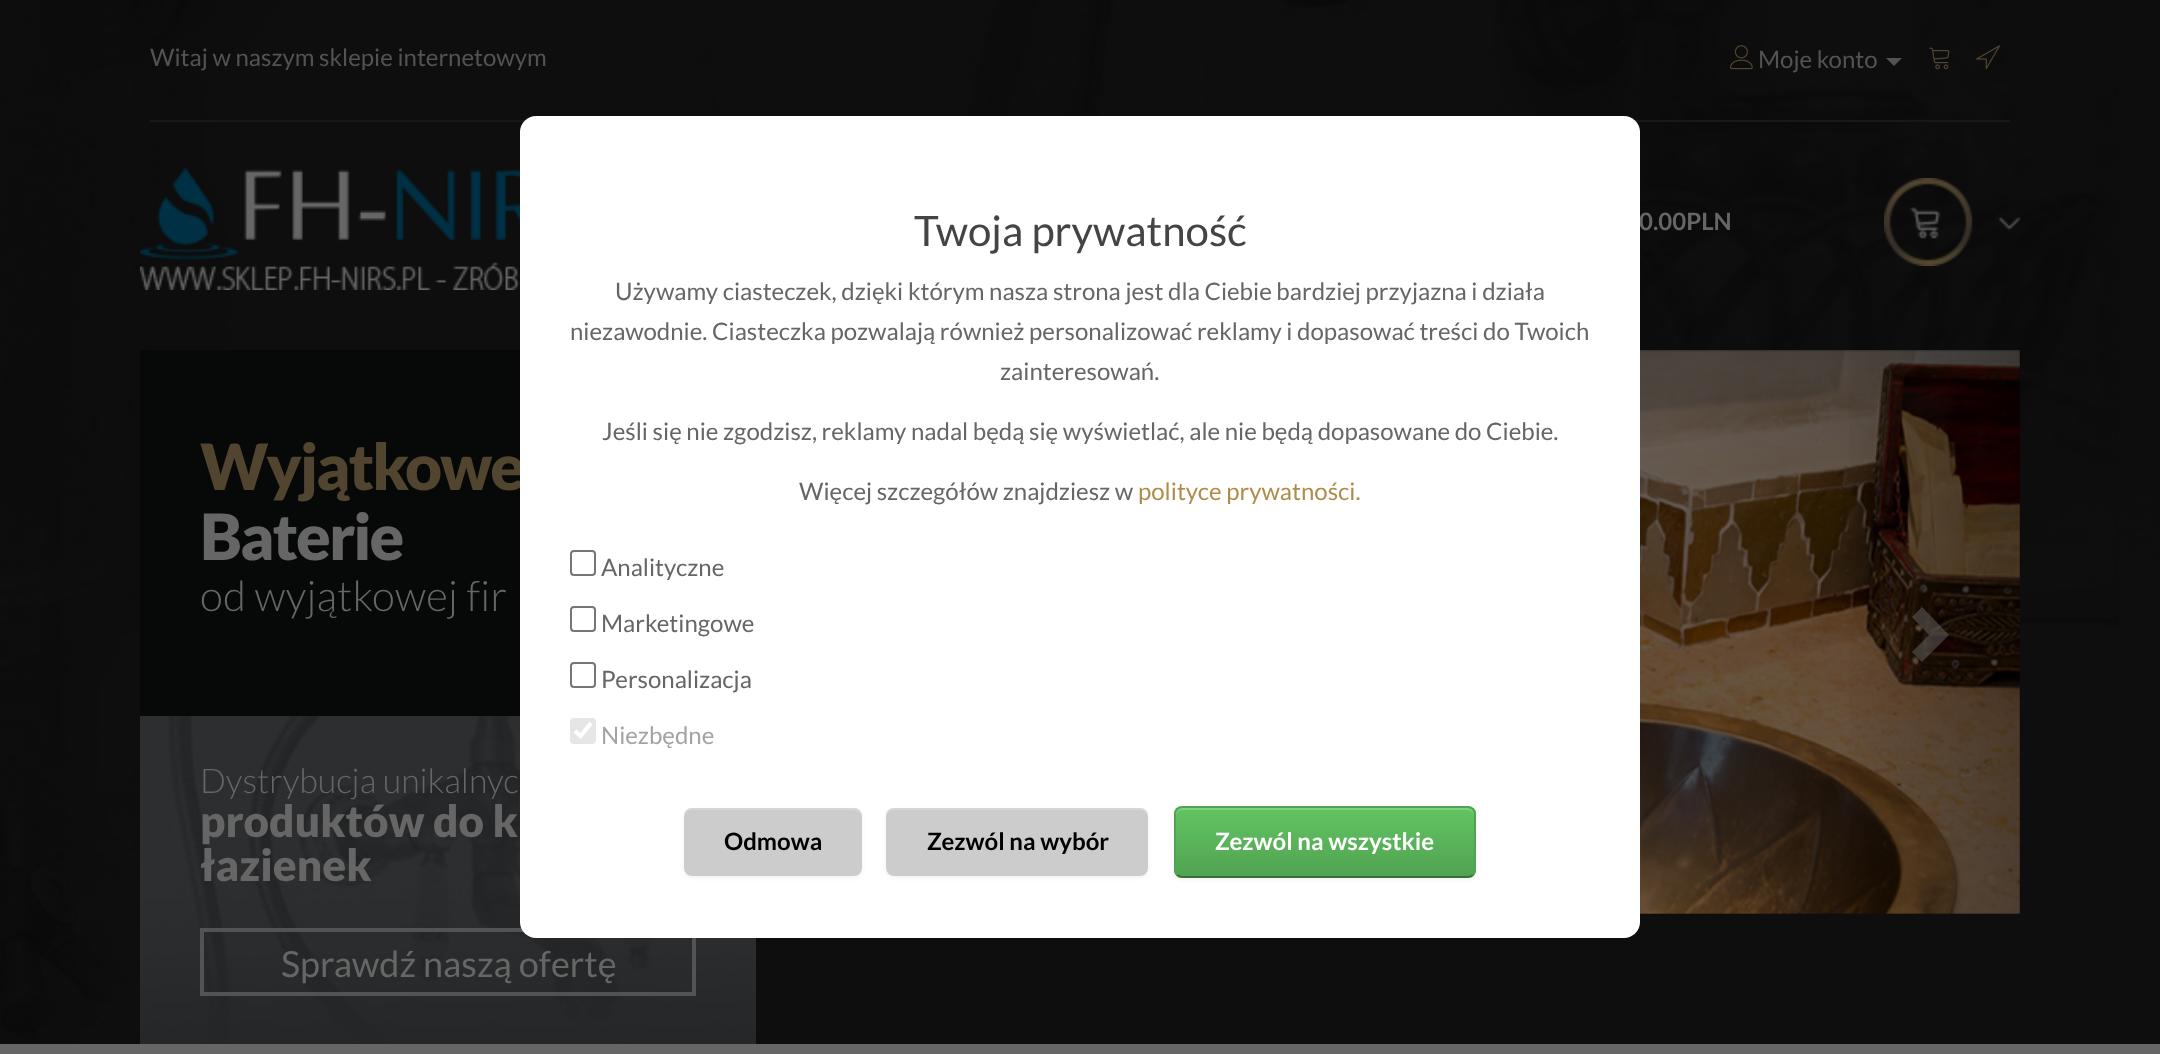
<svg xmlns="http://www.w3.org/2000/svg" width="2160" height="1054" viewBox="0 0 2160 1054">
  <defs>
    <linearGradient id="g1" gradientUnits="userSpaceOnUse" x1="1830" y1="632" x2="2020" y2="632"><stop offset="0" stop-color="#000" stop-opacity="0"/><stop offset="1" stop-color="#000" stop-opacity="0.25"/></linearGradient>
    <clipPath id="clip1"><rect x="1174" y="806" width="302" height="72" rx="8"/></clipPath>
    <linearGradient id="g2" gradientUnits="userSpaceOnUse" x1="1325" y1="808" x2="1325" y2="876"><stop offset="0" stop-color="#62c462"/><stop offset="1" stop-color="#51a351"/></linearGradient>
  </defs>
  <rect width="100%" height="100%" fill="#666"/>
  <image x="0" y="0" width="2160" height="1044" href="img/1.png"/>
  <path d="M150 120h1860v2H150z" fill="#181818"/>
  <image x="1730" y="45" width="23" height="25" href="img/2.png"/>
  <path d="M1886 58H1902L1894 66Z" fill="#535353"/>
  <image x="1929" y="47" width="21" height="23" href="img/3.png"/>
  <image x="1976" y="45" width="24" height="25" href="img/4.png"/>
  <image x="140" y="168" width="380" height="122" href="img/5.png"/>
  <image x="1884" y="178" width="136" height="88" href="img/6.png"/>
  <path d="M140 350h380v366H140z" fill="#070808"/>
  <image x="140" y="716" width="616" height="328" href="img/7.png"/>
  <path d="M202 930h492v64H202z" fill="none" stroke="#535353" stroke-width="4"/>
  <image x="1640" y="350" width="380" height="564" href="img/8.png"/>
  <path d="M1849 350h171v564H1849z" fill="url(#g1)"/>
  <path d="M1949 635L1922 662L1912 652L1929 635L1912 617L1922 607Z" fill="#66666680"/>
  <g font-family="Lato" font-size="24" fill="#535353">
    <text x="150" y="66">Witaj w naszym sklepie internetowym</text>
    <text x="1758" y="68">Moje konto</text>
  </g>
  <text x="1639" y="230" font-family="Lato" font-size="24" font-weight="bold" fill="#666">0.00PLN</text>
  <text x="200" y="490" font-family="Lato" font-size="64" font-weight="900" letter-spacing="-2" fill="#51452f">Wyjątkowe</text>
  <text x="200" y="560" font-family="Lato" font-size="64" font-weight="900" letter-spacing="-2" fill="#666">Baterie</text>
  <text x="200" y="611" font-family="Lato" font-size="42" font-weight="300" letter-spacing="0.25" fill="#666">od wyjątkowej fir</text>
  <text x="200" y="793" font-family="Lato" font-size="34" font-weight="300" fill="#666">Dystrybucja unikalnyc</text>
  <g font-family="Lato" font-size="44" font-weight="900" fill="#666">
    <text x="200" y="837">produktów do k</text>
    <text x="200" y="881">łazienek</text>
  </g>
  <text x="281" y="977" font-family="Lato" font-size="36" fill="#666">Sprawdź naszą ofertę</text>
  <rect x="520" y="116" width="1120" height="822" rx="16" fill="#fff"/>
  <text x="914" y="246" font-family="Lato" font-size="42" fill="#444">Twoja prywatność</text>
  <g font-family="Lato" font-size="24" fill="#666">
    <text x="615" y="300">Używamy ciasteczek, dzięki którym nasza strona jest dla Ciebie bardziej przyjazna i działa</text>
    <text x="570" y="340">niezawodnie. Ciasteczka pozwalają również personalizować reklamy i dopasować treści do Twoich</text>
    <text x="1000" y="380">zainteresowań.</text>
    <text x="602" y="440">Jeśli się nie zgodzisz, reklamy nadal będą się wyświetlać, ale nie będą dopasowane do Ciebie.</text>
    <text x="799" y="500">Więcej szczegółów znajdziesz w</text>
  </g>
  <text x="1138" y="500" font-family="Lato" font-size="24" fill="#b08c4b">polityce prywatności.</text>
  <rect x="571" y="551" width="24" height="24" rx="3" fill="none" stroke="#767676" stroke-width="2"/>
  <text x="601" y="576" font-family="Lato" font-size="24" fill="#666">Analityczne</text>
  <rect x="571" y="607" width="24" height="24" rx="3" fill="none" stroke="#767676" stroke-width="2"/>
  <text x="601" y="632" font-family="Lato" font-size="24" fill="#666">Marketingowe</text>
  <rect x="571" y="663" width="24" height="24" rx="3" fill="none" stroke="#767676" stroke-width="2"/>
  <text x="601" y="688" font-family="Lato" font-size="24" fill="#666">Personalizacja</text>
  <rect x="570" y="718" width="26" height="26" rx="4" fill="#e6e6e6"/>
  <path d="M575 731L580.5 736L591 723" fill="none" stroke="#fff" stroke-width="4.2"/>
  <text x="601" y="744" font-family="Lato" font-size="24" fill="#a3a3a3">Niezbędne</text>
  <rect x="684" y="810" width="178" height="68" rx="8" fill="#0000000d" filter="blur(2px)"/>
  <rect x="684" y="808" width="178" height="68" rx="8" fill="#ccc"/>
  <path d="M692 810H854C858 810 862 814 862 818V816C862 812 858 808 854 808H692C688 808 684 812 684 816V818C684 814 688 810 692 810Z" fill="#ffffff33"/>
  <text x="724" y="850" font-family="Lato" font-size="24" font-weight="bold" fill="#000">Odmowa</text>
  <rect x="886" y="810" width="262" height="68" rx="8" fill="#0000000d" filter="blur(2px)"/>
  <rect x="886" y="808" width="262" height="68" rx="8" fill="#ccc"/>
  <path d="M894 810H1140C1144 810 1148 814 1148 818V816C1148 812 1144 808 1140 808H894C890 808 886 812 886 816V818C886 814 890 810 894 810Z" fill="#ffffff33"/>
  <text x="927" y="850" font-family="Lato" font-size="24" font-weight="bold" fill="#000">Zezwól na wybór</text>
  <rect x="1174" y="808" width="302" height="72" rx="8" fill="#0000000d" filter="blur(2px)"/>
  <g clip-path="url(#clip1)">
    <path d="M1174 808h302v68H1174z" fill="url(#g2)"/>
  </g>
  <path d="M1182 810H1468C1471 810 1474 813 1474 816V814C1474 811 1471 808 1468 808H1182C1179 808 1176 811 1176 814V816C1176 813 1179 810 1182 810Z" fill="#ffffff33"/>
  <path d="M1473 875C1471.5 876.5 1470 877 1468 877H1182C1180 877 1178.5 876.5 1177 875" fill="none" stroke="#387038" stroke-width="2"/>
  <path d="M1177 875C1175.5 873.5 1175 872 1175 870V814C1175 812 1175.5 810.5 1177 809C1178.5 807.5 1180 807 1182 807H1468C1470 807 1471.5 807.5 1473 809C1474.5 810.5 1475 812 1475 814V870C1475 872 1474.5 873.5 1473 875" fill="none" stroke="#51a351" stroke-width="2"/>
  <text x="1215" y="850" font-family="Lato" font-size="24" font-weight="bold" fill="#fff">Zezwól na wszystkie</text>
</svg>
